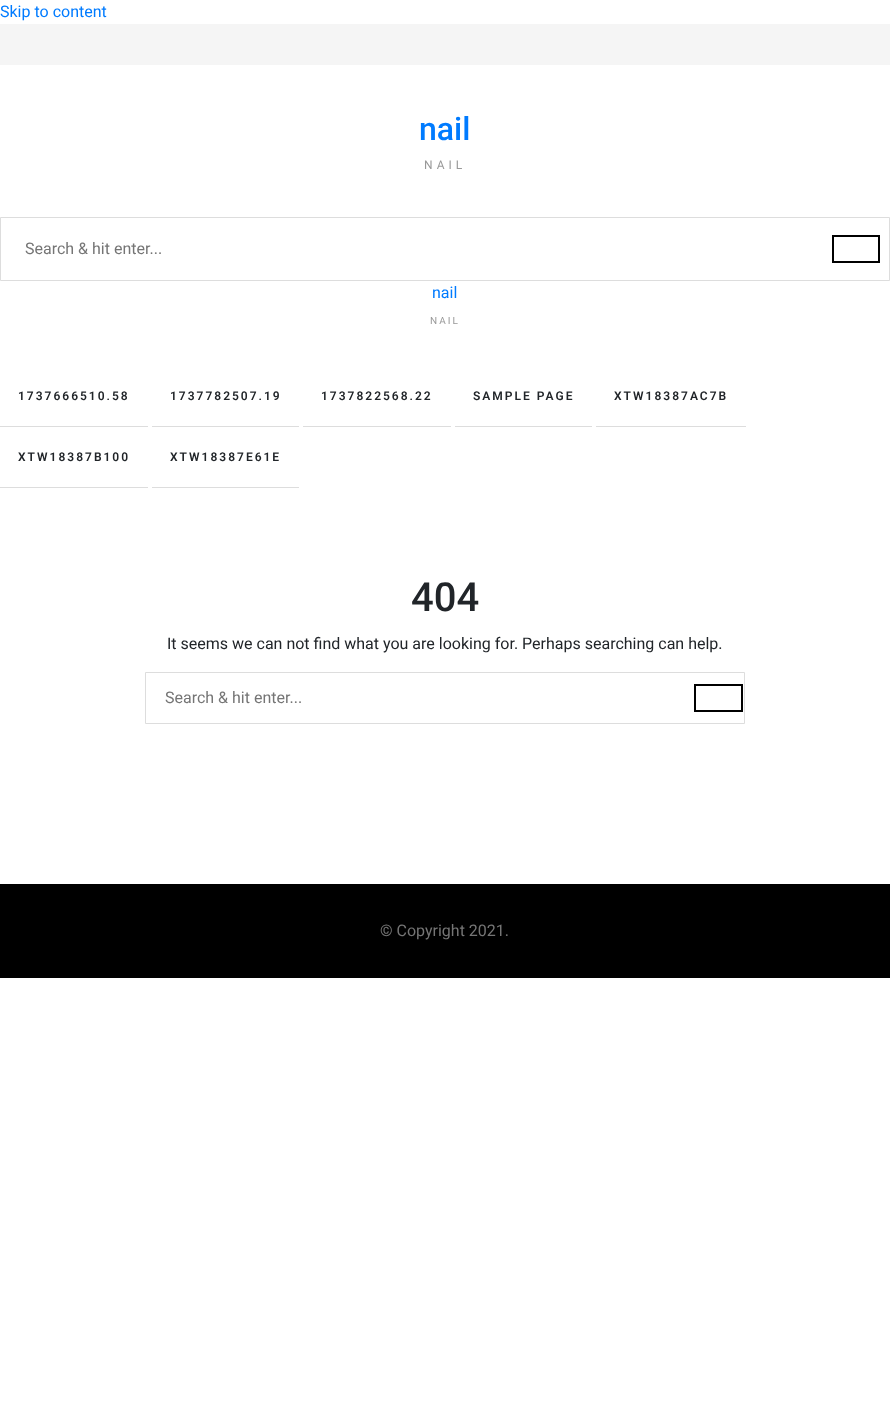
<svg xmlns="http://www.w3.org/2000/svg" width="890" height="1414" viewBox="0 0 890 1414">
  <rect width="100%" height="100%" fill="#fff"/>
  <path d="M0 24h890v41H0z" fill="#f5f5f5"/>
  <path d="M0.5 217.5h889v63H0.5z" fill="none" stroke="#ddd"/>
  <path d="M833 236h46v26H833z" fill="none" stroke="#000" stroke-width="2"/>
  <path d="M0 426h148v1H0z" fill="#ddd"/>
  <path d="M152 426h147v1H152z" fill="#ddd"/>
  <path d="M303 426h148v1H303z" fill="#ddd"/>
  <path d="M455 426h137v1H455z" fill="#ddd"/>
  <path d="M596 426h150v1H596z" fill="#ddd"/>
  <path d="M0 487h148v1H0z" fill="#ddd"/>
  <path d="M152 487h147v1H152z" fill="#ddd"/>
  <path d="M145.5 672.5h599v51H145.5z" fill="none" stroke="#ddd"/>
  <path d="M695 685h47v26H695z" fill="none" stroke="#000" stroke-width="2"/>
  <path d="M0 884h890v94H0z" fill="#000"/>
  <text x="0" y="17" font-family="Roboto" font-size="16" fill="#007bff">Skip to content</text>
  <text x="419" y="140" font-family="Roboto" font-size="32" font-weight="500" fill="#007bff">nail</text>
  <text x="424" y="169" font-family="Roboto" font-size="12" letter-spacing="4" fill="#999">NAIL</text>
  <text x="25" y="254" font-family="Roboto" font-size="16" fill="#757575">Search &amp; hit enter...</text>
  <text x="432" y="298" font-family="Roboto" font-size="16" fill="#007bff">nail</text>
  <text x="430" y="324" font-family="Roboto" font-size="10" letter-spacing="2" fill="#999">NAIL</text>
  <g font-family="Roboto" font-size="12" font-weight="600" letter-spacing="2" fill="#212529">
    <text x="18" y="400">1737666510.58</text>
    <text x="170" y="400">1737782507.19</text>
    <text x="321" y="400">1737822568.22</text>
    <text x="473" y="400">SAMPLE PAGE</text>
    <text x="614" y="400">XTW18387AC7B</text>
    <text x="18" y="461">XTW18387B100</text>
    <text x="170" y="461">XTW18387E61E</text>
  </g>
  <text x="411" y="611" font-family="Roboto" font-size="40" font-weight="500" fill="#212529">404</text>
  <text x="167" y="649" font-family="Roboto" font-size="16" fill="#212529">It seems we can not find what you are looking for. Perhaps searching can help.</text>
  <g font-family="Roboto" font-size="16" fill="#757575">
    <text x="165" y="703">Search &amp; hit enter...</text>
    <text x="380" y="936">© Copyright 2021.</text>
  </g>
</svg>
